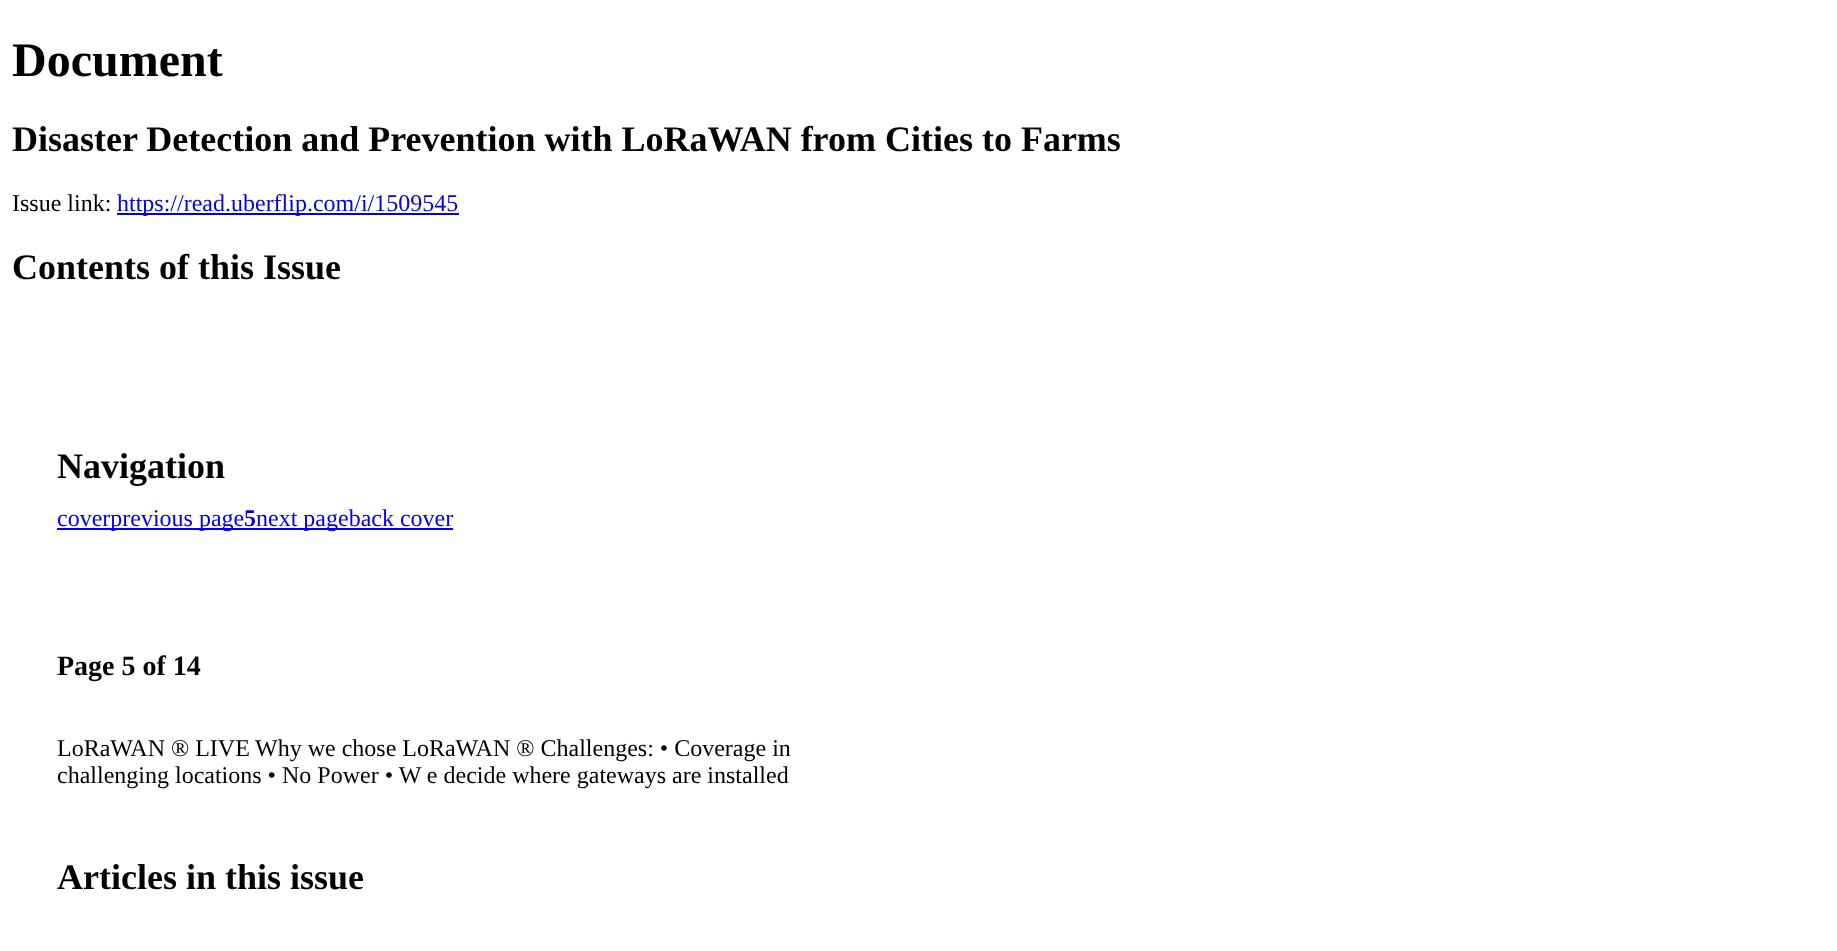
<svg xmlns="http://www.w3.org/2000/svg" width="1837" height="951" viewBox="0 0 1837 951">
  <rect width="100%" height="100%" fill="#fff"/>
  <path d="M117 213h342v2H117z" fill="#00e"/>
  <path d="M57 528h396v2H57z" fill="#00e"/>
  <text x="12" y="76" font-family="Liberation Serif" font-size="48" font-weight="bold" fill="#000">Document</text>
  <text x="12" y="151" font-family="Liberation Serif" font-size="36" font-weight="bold" fill="#000">Disaster Detection and Prevention with LoRaWAN from Cities to Farms</text>
  <text x="12" y="211" font-family="Liberation Serif" font-size="24" fill="#000">Issue link:</text>
  <text x="117" y="211" font-family="Liberation Serif" font-size="24" fill="#00e">https://read.uberflip.com/i/1509545</text>
  <g font-family="Liberation Serif" font-size="36" font-weight="bold" fill="#000">
    <text x="12" y="279">Contents of this Issue</text>
    <text x="57" y="478">Navigation</text>
  </g>
  <text x="57" y="526" font-family="Liberation Serif" font-size="24" fill="#00e">coverprevious page</text>
  <text x="244" y="526" font-family="Liberation Serif" font-size="24" font-weight="bold" fill="#00e">5</text>
  <text x="256" y="526" font-family="Liberation Serif" font-size="24" fill="#00e">next pageback cover</text>
  <text x="57" y="675" font-family="Liberation Serif" font-size="28" font-weight="bold" fill="#000">Page 5 of 14</text>
  <g font-family="Liberation Serif" font-size="24" fill="#000">
    <text x="57" y="756">LoRaWAN ® LIVE</text>
    <text x="255" y="756">Why we chose LoRaWAN ® Challenges: • Coverage in</text>
    <text x="57" y="783">challenging locations • No Power • W e decide where gateways are installed</text>
  </g>
  <text x="57" y="889" font-family="Liberation Serif" font-size="36" font-weight="bold" fill="#000">Articles in this issue</text>
</svg>
